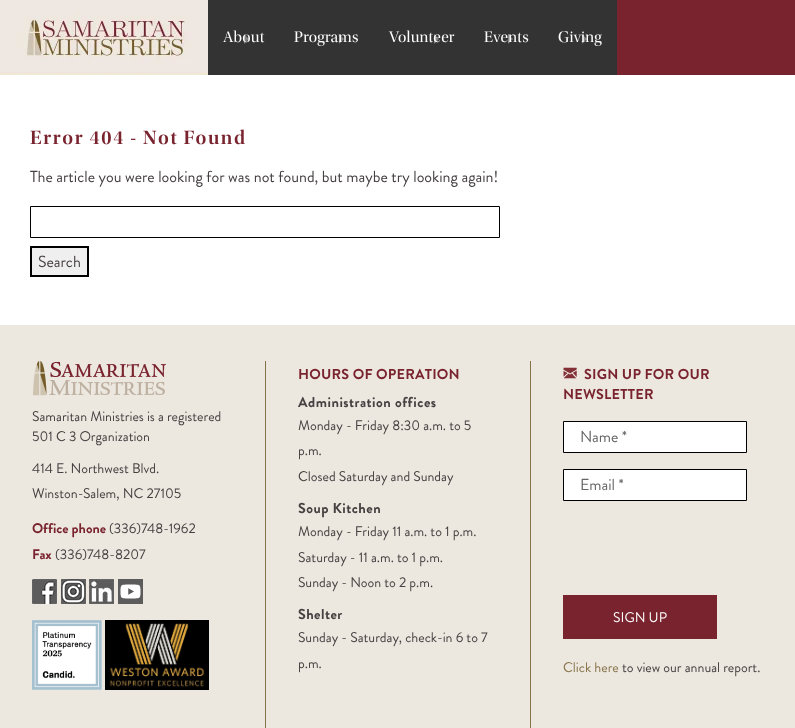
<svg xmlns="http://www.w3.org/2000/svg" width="795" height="728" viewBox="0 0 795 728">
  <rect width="100%" height="100%" fill="#ece7df"/>
  <path d="M617 0h178v75H617z" fill="#79232e"/>
  <image x="0" y="0" width="208" height="75" href="img/1.png"/>
  <path d="M208 0h409v75H208z" fill="#333"/>
  <path d="M0 75h795v250H0z" fill="#fff"/>
  <path d="M30.5 206.5h469v31H30.5z" fill="none" stroke="#000"/>
  <path d="M31 247h57v29H31z" fill="#efefef" stroke="#000" stroke-width="2"/>
  <image x="33" y="361" width="133" height="35" href="img/2.png"/>
  <image x="32" y="579" width="25" height="25" href="img/3.png"/>
  <image x="61" y="579" width="25" height="25" href="img/4.png"/>
  <image x="89" y="579" width="25" height="25" href="img/5.png"/>
  <image x="118" y="579" width="25" height="25" href="img/6.png"/>
  <image x="32" y="620" width="70" height="70" href="img/7.png"/>
  <image x="105" y="620" width="104" height="70" href="img/8.png"/>
  <path d="M265 361h1v367H265z" fill="#877349"/>
  <path d="M530 361h1v367H530z" fill="#877349"/>
  <image x="563" y="367" width="14" height="12" href="img/9.png"/>
  <path d="M563.5 421.5h183v31H563.5z" fill="#fff" stroke="#000"/>
  <path d="M563.5 469.5h183v31H563.5z" fill="#fff" stroke="#000"/>
  <path d="M563 595h154v44H563z" fill="#79232e"/>
  <text x="223" y="42" font-family="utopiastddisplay" font-size="16" letter-spacing="0.2" fill="#fff">About</text>
  <path d="M244 44V34L249 39Z" fill="#ffffff66"/>
  <text x="294" y="42" font-family="utopiastddisplay" font-size="16" letter-spacing="0.2" fill="#fff">Programs</text>
  <path d="M339 44V34L344 39Z" fill="#ffffff66"/>
  <text x="389" y="42" font-family="utopiastddisplay" font-size="16" letter-spacing="0.2" fill="#fff">Volunteer</text>
  <path d="M434 44V34L439 39Z" fill="#ffffff66"/>
  <text x="484" y="42" font-family="utopiastddisplay" font-size="16" letter-spacing="0.2" fill="#fff">Events</text>
  <path d="M508 44V34L513 39Z" fill="#ffffff66"/>
  <text x="558" y="42" font-family="utopiastddisplay" font-size="16" letter-spacing="0.2" fill="#fff">Giving</text>
  <path d="M582 44V34L587 39Z" fill="#ffffff66"/>
  <text x="30" y="144" font-family="utopiastddisplay" font-size="20" font-weight="600" letter-spacing="1.6" fill="#79232e">Error 404 - Not Found</text>
  <g font-family="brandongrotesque" font-size="16" fill="#464041">
    <text x="30" y="182">The article you were looking for was not found, but maybe try looking again!</text>
    <text x="38" y="267">Search</text>
  </g>
  <g font-family="brandongrotesque" font-size="14" fill="#464041">
    <text x="32" y="421">Samaritan Ministries is a registered</text>
    <text x="32" y="441">501 C 3 Organization</text>
    <text x="32" y="473">414 E. Northwest Blvd.</text>
    <text x="32" y="498">Winston-Salem, NC 27105</text>
  </g>
  <text x="32" y="533" font-family="brandongrotesque" font-size="14" font-weight="500" fill="#79232e">Office phone</text>
  <text x="109" y="533" font-family="brandongrotesque" font-size="14" fill="#464041">(336)748-1962</text>
  <text x="32" y="559" font-family="brandongrotesque" font-size="14" font-weight="500" fill="#79232e">Fax</text>
  <text x="55" y="559" font-family="brandongrotesque" font-size="14" fill="#464041">(336)748-8207</text>
  <text x="298" y="379" font-family="brandongrotesque" font-size="14.4" font-weight="500" letter-spacing="0.2" fill="#79232e">HOURS OF OPERATION</text>
  <text x="298" y="407" font-family="brandongrotesque" font-size="14.4" font-weight="500" letter-spacing="0.5" fill="#464041">Administration offices</text>
  <g font-family="brandongrotesque" font-size="14" fill="#464041">
    <text x="298" y="430">Monday - Friday 8:30 a.m. to 5</text>
    <text x="298" y="455">p.m.</text>
    <text x="298" y="481">Closed Saturday and Sunday</text>
  </g>
  <text x="298" y="513" font-family="brandongrotesque" font-size="14.4" font-weight="500" letter-spacing="0.5" fill="#464041">Soup Kitchen</text>
  <g font-family="brandongrotesque" font-size="14" fill="#464041">
    <text x="298" y="536">Monday - Friday 11 a.m. to 1 p.m.</text>
    <text x="298" y="562">Saturday - 11 a.m. to 1 p.m.</text>
    <text x="298" y="587">Sunday - Noon to 2 p.m.</text>
  </g>
  <text x="298" y="619" font-family="brandongrotesque" font-size="14.4" font-weight="500" letter-spacing="0.5" fill="#464041">Shelter</text>
  <g font-family="brandongrotesque" font-size="14" fill="#464041">
    <text x="298" y="642">Sunday - Saturday, check-in 6 to 7</text>
    <text x="298" y="668">p.m.</text>
  </g>
  <g font-family="brandongrotesque" font-size="14.4" font-weight="500" letter-spacing="0.2" fill="#79232e">
    <text x="584" y="379">SIGN UP FOR OUR</text>
    <text x="563" y="399">NEWSLETTER</text>
  </g>
  <g font-family="brandongrotesque" font-size="16" fill="#666">
    <text x="580" y="442">Name *</text>
    <text x="580" y="490">Email *</text>
  </g>
  <text x="613" y="622" font-family="brandongrotesque" font-size="14" fill="#fff">SIGN UP</text>
  <text x="563" y="672" font-family="brandongrotesque" font-size="14" fill="#877349">Click here</text>
  <text x="622" y="672" font-family="brandongrotesque" font-size="14" fill="#464041">to view our annual report.</text>
</svg>
